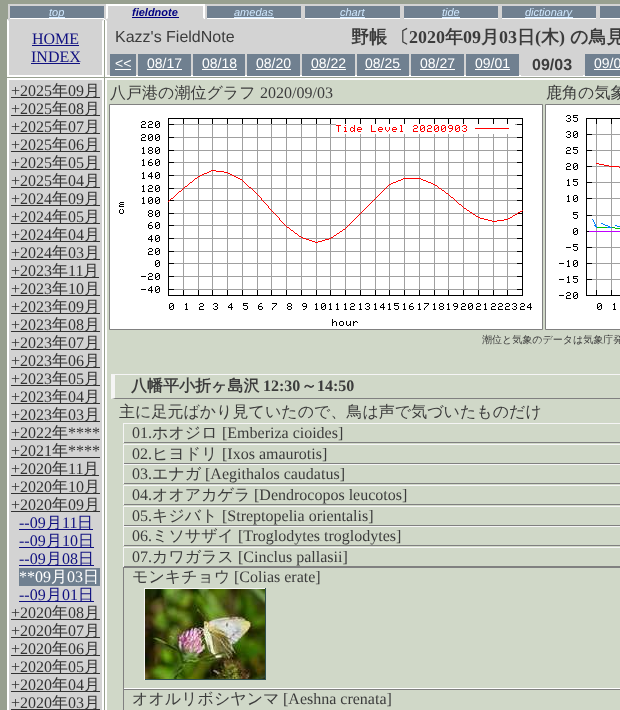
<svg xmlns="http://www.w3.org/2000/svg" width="620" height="710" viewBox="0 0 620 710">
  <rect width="100%" height="100%" fill="#98a090"/>
  <path d="M9 6h96v13H9z" fill="#708090"/>
  <path d="M8 4h98v2H8z" fill="#d3d3d3"/>
  <path d="M106 4V20L104 18V6Z" fill="#d3d3d3"/>
  <path d="M106 20H8L10 18H104Z" fill="#fff"/>
  <path d="M8 20V4L10 6V18Z" fill="#d3d3d3"/>
  <path d="M49 17h16v1H49z" fill="#d0e8ff"/>
  <path d="M107 6h97v13H107z" fill="#d3d3d3"/>
  <path d="M106 4h99v2H106z" fill="#fff"/>
  <path d="M205 4V20L203 18V6Z" fill="#fff"/>
  <path d="M205 20H106L108 18H203Z" fill="#d3d3d3"/>
  <path d="M106 20V4L108 6V18Z" fill="#fff"/>
  <path d="M132 17h47v1H132z" fill="#000080"/>
  <path d="M206 6h96v13H206z" fill="#708090"/>
  <path d="M205 4h415v2H205z" fill="#d3d3d3"/>
  <path d="M303 4V20L301 18V6Z" fill="#d3d3d3"/>
  <path d="M303 20H205L207 18H301Z" fill="#fff"/>
  <path d="M205 20V4L207 6V18Z" fill="#d3d3d3"/>
  <path d="M234 17h40v1H234z" fill="#d0e8ff"/>
  <path d="M304 6h97v13H304z" fill="#708090"/>
  <path d="M402 4V20L400 18V6Z" fill="#d3d3d3"/>
  <path d="M402 20H303L305 18H400Z" fill="#fff"/>
  <path d="M303 20V4L305 6V18Z" fill="#d3d3d3"/>
  <path d="M340 17h25v1H340z" fill="#d0e8ff"/>
  <path d="M403 6h96v13H403z" fill="#708090"/>
  <path d="M500 4V20L498 18V6Z" fill="#d3d3d3"/>
  <path d="M500 20H402L404 18H498Z" fill="#fff"/>
  <path d="M402 20V4L404 6V18Z" fill="#d3d3d3"/>
  <path d="M442 17h18v1H442z" fill="#d0e8ff"/>
  <path d="M501 6h96v13H501z" fill="#708090"/>
  <path d="M598 4V20L596 18V6Z" fill="#d3d3d3"/>
  <path d="M598 20H500L502 18H596Z" fill="#fff"/>
  <path d="M500 20V4L502 6V18Z" fill="#d3d3d3"/>
  <path d="M525 17h48v1H525z" fill="#d0e8ff"/>
  <path d="M599 6h21v13H599z" fill="#708090"/>
  <path d="M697 20H598L600 18H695Z" fill="#fff"/>
  <path d="M598 20V4L600 6V18Z" fill="#d3d3d3"/>
  <path d="M7 19h97v56H7z" fill="#d3d3d3"/>
  <path d="M104 19V77L102 75V21Z" fill="#fff"/>
  <path d="M7 75h97v2H7z" fill="#fff"/>
  <path d="M7 77V19L9 21V75Z" fill="#fff"/>
  <path d="M32 45h47v1H32z" fill="#101080"/>
  <path d="M31 63h49v1H31z" fill="#101080"/>
  <path d="M105 19h515v56H105z" fill="#d3d3d3"/>
  <path d="M105 75h515v2H105z" fill="#fff"/>
  <path d="M105 77V19L107 21V75Z" fill="#fff"/>
  <path d="M110 54h26v22H110z" fill="#708090"/>
  <path d="M115 69h16v1H115z" fill="#fff"/>
  <path d="M138 54h53v22H138z" fill="#708090"/>
  <path d="M147 69h35v1H147z" fill="#fff"/>
  <path d="M193 54h52v22H193z" fill="#708090"/>
  <path d="M202 69h35v1H202z" fill="#fff"/>
  <path d="M247 54h53v22H247z" fill="#708090"/>
  <path d="M256 69h35v1H256z" fill="#fff"/>
  <path d="M302 54h53v22H302z" fill="#708090"/>
  <path d="M311 69h35v1H311z" fill="#fff"/>
  <path d="M357 54h52v22H357z" fill="#708090"/>
  <path d="M365 69h36v1H365z" fill="#fff"/>
  <path d="M411 54h53v22H411z" fill="#708090"/>
  <path d="M420 69h35v1H420z" fill="#fff"/>
  <path d="M466 54h53v22H466z" fill="#708090"/>
  <path d="M475 69h35v1H475z" fill="#fff"/>
  <path d="M522 55h60v20H522z" fill="none" stroke="#d3d3d3" stroke-width="2"/>
  <path d="M585 54h35v22H585z" fill="#708090"/>
  <path d="M594 69h26v1H594z" fill="#fff"/>
  <path d="M8 79h95v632H8z" fill="#d3d3d3" stroke="#fff" stroke-width="2"/>
  <path d="M11 97h89v1H11z" fill="#333"/>
  <path d="M11 115h89v1H11z" fill="#333"/>
  <path d="M11 133h89v1H11z" fill="#333"/>
  <path d="M11 151h89v1H11z" fill="#333"/>
  <path d="M11 169h89v1H11z" fill="#333"/>
  <path d="M11 187h89v1H11z" fill="#333"/>
  <path d="M11 205h89v1H11z" fill="#333"/>
  <path d="M11 223h89v1H11z" fill="#333"/>
  <path d="M11 241h89v1H11z" fill="#333"/>
  <path d="M11 259h89v1H11z" fill="#333"/>
  <path d="M11 277h88v1H11z" fill="#333"/>
  <path d="M11 295h89v1H11z" fill="#333"/>
  <path d="M11 313h89v1H11z" fill="#333"/>
  <path d="M11 331h89v1H11z" fill="#333"/>
  <path d="M11 349h89v1H11z" fill="#333"/>
  <path d="M11 367h89v1H11z" fill="#333"/>
  <path d="M11 385h89v1H11z" fill="#333"/>
  <path d="M11 403h89v1H11z" fill="#333"/>
  <path d="M11 421h89v1H11z" fill="#333"/>
  <path d="M11 439h89v1H11z" fill="#333"/>
  <path d="M11 457h89v1H11z" fill="#333"/>
  <path d="M11 475h88v1H11z" fill="#333"/>
  <path d="M11 493h89v1H11z" fill="#333"/>
  <path d="M11 511h89v1H11z" fill="#333"/>
  <path d="M19 529h74v1H19z" fill="#101080"/>
  <path d="M19 547h75v1H19z" fill="#101080"/>
  <path d="M19 565h75v1H19z" fill="#101080"/>
  <path d="M19 568h81v18H19z" fill="#708090"/>
  <path d="M19 601h75v1H19z" fill="#101080"/>
  <path d="M11 619h89v1H11z" fill="#333"/>
  <path d="M11 637h89v1H11z" fill="#333"/>
  <path d="M11 655h89v1H11z" fill="#333"/>
  <path d="M11 673h89v1H11z" fill="#333"/>
  <path d="M11 691h89v1H11z" fill="#333"/>
  <path d="M11 709h89v1H11z" fill="#333"/>
  <path d="M106 79h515v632H106z" fill="#d0d8c8" stroke="#fff" stroke-width="2"/>
  <path d="M109.5 104.5h433v225H109.5z" fill="none" stroke="#808080"/>
  <image x="110" y="105" width="432" height="224" href="img/1.png"/>
  <path d="M545.5 104.5h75v225H545.5z" fill="none" stroke="#808080"/>
  <image x="546" y="105" width="74" height="224" href="img/2.png"/>
  <path d="M111 374h509v1H111z" fill="#f5f5f5"/>
  <path d="M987 399H111L115 398H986Z" fill="#808080"/>
  <path d="M111 399V374L115 375V398Z" fill="#f5f5f5"/>
  <path d="M123 423h497v1H123z" fill="#f5f5f5"/>
  <path d="M123 442h497v1H123z" fill="#808080"/>
  <path d="M123 423h1v20H123z" fill="#f5f5f5"/>
  <path d="M123 444h497v1H123z" fill="#f5f5f5"/>
  <path d="M123 463h497v1H123z" fill="#808080"/>
  <path d="M123 444h1v20H123z" fill="#f5f5f5"/>
  <path d="M123 464h497v1H123z" fill="#f5f5f5"/>
  <path d="M123 483h497v1H123z" fill="#808080"/>
  <path d="M123 464h1v20H123z" fill="#f5f5f5"/>
  <path d="M123 485h497v1H123z" fill="#f5f5f5"/>
  <path d="M123 504h497v1H123z" fill="#808080"/>
  <path d="M123 485h1v20H123z" fill="#f5f5f5"/>
  <path d="M123 506h497v1H123z" fill="#f5f5f5"/>
  <path d="M123 525h497v1H123z" fill="#808080"/>
  <path d="M123 506h1v20H123z" fill="#f5f5f5"/>
  <path d="M123 526h497v1H123z" fill="#f5f5f5"/>
  <path d="M123 545h497v1H123z" fill="#808080"/>
  <path d="M123 526h1v20H123z" fill="#f5f5f5"/>
  <path d="M123 547h497v1H123z" fill="#f5f5f5"/>
  <path d="M123 566h497v2H123z" fill="#808080"/>
  <path d="M123 547h1v20H123z" fill="#f5f5f5"/>
  <path d="M123 688h497v1H123z" fill="#fff"/>
  <path d="M123 567h1v122H123z" fill="#808080"/>
  <path d="M144 588h122v1H144z" fill="#f5f5f5"/>
  <path d="M265 588h1v92H265z" fill="#2f4f4f"/>
  <path d="M144 679h122v1H144z" fill="#2f4f4f"/>
  <path d="M144 588h1v92H144z" fill="#f5f5f5"/>
  <image x="145" y="589" width="120" height="90" href="img/3.png"/>
  <path d="M123 689h497v1H123z" fill="#808080"/>
  <path d="M123 689h1v21H123z" fill="#808080"/>
  <text x="49" y="16" font-family="Liberation Sans" font-size="11" font-style="italic" fill="#d0e8ff">top</text>
  <text x="132" y="16" font-family="Liberation Sans" font-size="11" font-weight="bold" font-style="italic" fill="#000080">fieldnote</text>
  <g font-family="Liberation Sans" font-size="11" font-style="italic" fill="#d0e8ff">
    <text x="234" y="16">amedas</text>
    <text x="340" y="16">chart</text>
    <text x="442" y="16">tide</text>
    <text x="525" y="16">dictionary</text>
  </g>
  <g font-family="Liberation Serif" font-size="16" fill="#101080">
    <text x="32" y="44">HOME</text>
    <text x="31" y="62">INDEX</text>
  </g>
  <text x="115" y="42" font-family="Liberation Sans" font-size="16" fill="#3c3c3c">Kazz's FieldNote</text>
  <g font-family="WenQuanYi Zen Hei" font-size="18" font-weight="bold" fill="#3c3c3c">
    <text x="351" y="43">野帳</text>
    <text x="391" y="43">〔</text>
  </g>
  <text x="409" y="43" font-family="Liberation Serif" font-size="18" font-weight="bold" fill="#3c3c3c">2020</text>
  <text x="445" y="43" font-family="WenQuanYi Zen Hei" font-size="18" font-weight="bold" fill="#3c3c3c">年</text>
  <text x="463" y="43" font-family="Liberation Serif" font-size="18" font-weight="bold" fill="#3c3c3c">09</text>
  <text x="481" y="43" font-family="WenQuanYi Zen Hei" font-size="18" font-weight="bold" fill="#3c3c3c">月</text>
  <text x="499" y="43" font-family="Liberation Serif" font-size="18" font-weight="bold" fill="#3c3c3c">03</text>
  <text x="517" y="43" font-family="WenQuanYi Zen Hei" font-size="18" font-weight="bold" fill="#3c3c3c">日</text>
  <text x="535" y="43" font-family="Liberation Serif" font-size="18" font-weight="bold" fill="#3c3c3c">(</text>
  <text x="541" y="43" font-family="WenQuanYi Zen Hei" font-size="18" font-weight="bold" fill="#3c3c3c">木</text>
  <text x="559" y="43" font-family="Liberation Serif" font-size="18" font-weight="bold" fill="#3c3c3c">)</text>
  <text x="570" y="43" font-family="WenQuanYi Zen Hei" font-size="18" font-weight="bold" fill="#3c3c3c">の鳥見</text>
  <g font-family="Liberation Sans" font-size="14" fill="#fff">
    <text x="115" y="68">&lt;&lt;</text>
    <text x="147" y="68">08/17</text>
    <text x="202" y="68">08/18</text>
    <text x="256" y="68">08/20</text>
    <text x="311" y="68">08/22</text>
    <text x="365" y="68">08/25</text>
    <text x="420" y="68">08/27</text>
    <text x="475" y="68">09/01</text>
  </g>
  <text x="532" y="70" font-family="Liberation Sans" font-size="16" font-weight="bold" fill="#3c3c3c">09/03</text>
  <text x="594" y="68" font-family="Liberation Sans" font-size="14" fill="#fff">09/0</text>
  <text x="11" y="96" font-family="Liberation Serif" font-size="16" fill="#333">+2025</text>
  <text x="52" y="96" font-family="WenQuanYi Zen Hei" font-size="16" font-weight="500" fill="#333">年</text>
  <text x="68" y="96" font-family="Liberation Serif" font-size="16" fill="#333">09</text>
  <text x="84" y="96" font-family="WenQuanYi Zen Hei" font-size="16" font-weight="500" fill="#333">月</text>
  <text x="11" y="114" font-family="Liberation Serif" font-size="16" fill="#333">+2025</text>
  <text x="52" y="114" font-family="WenQuanYi Zen Hei" font-size="16" font-weight="500" fill="#333">年</text>
  <text x="68" y="114" font-family="Liberation Serif" font-size="16" fill="#333">08</text>
  <text x="84" y="114" font-family="WenQuanYi Zen Hei" font-size="16" font-weight="500" fill="#333">月</text>
  <text x="11" y="132" font-family="Liberation Serif" font-size="16" fill="#333">+2025</text>
  <text x="52" y="132" font-family="WenQuanYi Zen Hei" font-size="16" font-weight="500" fill="#333">年</text>
  <text x="68" y="132" font-family="Liberation Serif" font-size="16" fill="#333">07</text>
  <text x="84" y="132" font-family="WenQuanYi Zen Hei" font-size="16" font-weight="500" fill="#333">月</text>
  <text x="11" y="150" font-family="Liberation Serif" font-size="16" fill="#333">+2025</text>
  <text x="52" y="150" font-family="WenQuanYi Zen Hei" font-size="16" font-weight="500" fill="#333">年</text>
  <text x="68" y="150" font-family="Liberation Serif" font-size="16" fill="#333">06</text>
  <text x="84" y="150" font-family="WenQuanYi Zen Hei" font-size="16" font-weight="500" fill="#333">月</text>
  <text x="11" y="168" font-family="Liberation Serif" font-size="16" fill="#333">+2025</text>
  <text x="52" y="168" font-family="WenQuanYi Zen Hei" font-size="16" font-weight="500" fill="#333">年</text>
  <text x="68" y="168" font-family="Liberation Serif" font-size="16" fill="#333">05</text>
  <text x="84" y="168" font-family="WenQuanYi Zen Hei" font-size="16" font-weight="500" fill="#333">月</text>
  <text x="11" y="186" font-family="Liberation Serif" font-size="16" fill="#333">+2025</text>
  <text x="52" y="186" font-family="WenQuanYi Zen Hei" font-size="16" font-weight="500" fill="#333">年</text>
  <text x="68" y="186" font-family="Liberation Serif" font-size="16" fill="#333">04</text>
  <text x="84" y="186" font-family="WenQuanYi Zen Hei" font-size="16" font-weight="500" fill="#333">月</text>
  <text x="11" y="204" font-family="Liberation Serif" font-size="16" fill="#333">+2024</text>
  <text x="52" y="204" font-family="WenQuanYi Zen Hei" font-size="16" font-weight="500" fill="#333">年</text>
  <text x="68" y="204" font-family="Liberation Serif" font-size="16" fill="#333">09</text>
  <text x="84" y="204" font-family="WenQuanYi Zen Hei" font-size="16" font-weight="500" fill="#333">月</text>
  <text x="11" y="222" font-family="Liberation Serif" font-size="16" fill="#333">+2024</text>
  <text x="52" y="222" font-family="WenQuanYi Zen Hei" font-size="16" font-weight="500" fill="#333">年</text>
  <text x="68" y="222" font-family="Liberation Serif" font-size="16" fill="#333">05</text>
  <text x="84" y="222" font-family="WenQuanYi Zen Hei" font-size="16" font-weight="500" fill="#333">月</text>
  <text x="11" y="240" font-family="Liberation Serif" font-size="16" fill="#333">+2024</text>
  <text x="52" y="240" font-family="WenQuanYi Zen Hei" font-size="16" font-weight="500" fill="#333">年</text>
  <text x="68" y="240" font-family="Liberation Serif" font-size="16" fill="#333">04</text>
  <text x="84" y="240" font-family="WenQuanYi Zen Hei" font-size="16" font-weight="500" fill="#333">月</text>
  <text x="11" y="258" font-family="Liberation Serif" font-size="16" fill="#333">+2024</text>
  <text x="52" y="258" font-family="WenQuanYi Zen Hei" font-size="16" font-weight="500" fill="#333">年</text>
  <text x="68" y="258" font-family="Liberation Serif" font-size="16" fill="#333">03</text>
  <text x="84" y="258" font-family="WenQuanYi Zen Hei" font-size="16" font-weight="500" fill="#333">月</text>
  <text x="11" y="276" font-family="Liberation Serif" font-size="16" fill="#333">+2023</text>
  <text x="52" y="276" font-family="WenQuanYi Zen Hei" font-size="16" font-weight="500" fill="#333">年</text>
  <text x="68" y="276" font-family="Liberation Serif" font-size="16" fill="#333">11</text>
  <text x="83" y="276" font-family="WenQuanYi Zen Hei" font-size="16" font-weight="500" fill="#333">月</text>
  <text x="11" y="294" font-family="Liberation Serif" font-size="16" fill="#333">+2023</text>
  <text x="52" y="294" font-family="WenQuanYi Zen Hei" font-size="16" font-weight="500" fill="#333">年</text>
  <text x="68" y="294" font-family="Liberation Serif" font-size="16" fill="#333">10</text>
  <text x="84" y="294" font-family="WenQuanYi Zen Hei" font-size="16" font-weight="500" fill="#333">月</text>
  <text x="11" y="312" font-family="Liberation Serif" font-size="16" fill="#333">+2023</text>
  <text x="52" y="312" font-family="WenQuanYi Zen Hei" font-size="16" font-weight="500" fill="#333">年</text>
  <text x="68" y="312" font-family="Liberation Serif" font-size="16" fill="#333">09</text>
  <text x="84" y="312" font-family="WenQuanYi Zen Hei" font-size="16" font-weight="500" fill="#333">月</text>
  <text x="11" y="330" font-family="Liberation Serif" font-size="16" fill="#333">+2023</text>
  <text x="52" y="330" font-family="WenQuanYi Zen Hei" font-size="16" font-weight="500" fill="#333">年</text>
  <text x="68" y="330" font-family="Liberation Serif" font-size="16" fill="#333">08</text>
  <text x="84" y="330" font-family="WenQuanYi Zen Hei" font-size="16" font-weight="500" fill="#333">月</text>
  <text x="11" y="348" font-family="Liberation Serif" font-size="16" fill="#333">+2023</text>
  <text x="52" y="348" font-family="WenQuanYi Zen Hei" font-size="16" font-weight="500" fill="#333">年</text>
  <text x="68" y="348" font-family="Liberation Serif" font-size="16" fill="#333">07</text>
  <text x="84" y="348" font-family="WenQuanYi Zen Hei" font-size="16" font-weight="500" fill="#333">月</text>
  <text x="11" y="366" font-family="Liberation Serif" font-size="16" fill="#333">+2023</text>
  <text x="52" y="366" font-family="WenQuanYi Zen Hei" font-size="16" font-weight="500" fill="#333">年</text>
  <text x="68" y="366" font-family="Liberation Serif" font-size="16" fill="#333">06</text>
  <text x="84" y="366" font-family="WenQuanYi Zen Hei" font-size="16" font-weight="500" fill="#333">月</text>
  <text x="11" y="384" font-family="Liberation Serif" font-size="16" fill="#333">+2023</text>
  <text x="52" y="384" font-family="WenQuanYi Zen Hei" font-size="16" font-weight="500" fill="#333">年</text>
  <text x="68" y="384" font-family="Liberation Serif" font-size="16" fill="#333">05</text>
  <text x="84" y="384" font-family="WenQuanYi Zen Hei" font-size="16" font-weight="500" fill="#333">月</text>
  <text x="11" y="402" font-family="Liberation Serif" font-size="16" fill="#333">+2023</text>
  <text x="52" y="402" font-family="WenQuanYi Zen Hei" font-size="16" font-weight="500" fill="#333">年</text>
  <text x="68" y="402" font-family="Liberation Serif" font-size="16" fill="#333">04</text>
  <text x="84" y="402" font-family="WenQuanYi Zen Hei" font-size="16" font-weight="500" fill="#333">月</text>
  <text x="11" y="420" font-family="Liberation Serif" font-size="16" fill="#333">+2023</text>
  <text x="52" y="420" font-family="WenQuanYi Zen Hei" font-size="16" font-weight="500" fill="#333">年</text>
  <text x="68" y="420" font-family="Liberation Serif" font-size="16" fill="#333">03</text>
  <text x="84" y="420" font-family="WenQuanYi Zen Hei" font-size="16" font-weight="500" fill="#333">月</text>
  <text x="11" y="438" font-family="Liberation Serif" font-size="16" fill="#333">+2022</text>
  <text x="52" y="438" font-family="WenQuanYi Zen Hei" font-size="16" font-weight="500" fill="#333">年</text>
  <g font-family="Liberation Serif" font-size="16" fill="#333">
    <text x="68" y="438">****</text>
    <text x="11" y="456">+2021</text>
  </g>
  <text x="52" y="456" font-family="WenQuanYi Zen Hei" font-size="16" font-weight="500" fill="#333">年</text>
  <g font-family="Liberation Serif" font-size="16" fill="#333">
    <text x="68" y="456">****</text>
    <text x="11" y="474">+2020</text>
  </g>
  <text x="52" y="474" font-family="WenQuanYi Zen Hei" font-size="16" font-weight="500" fill="#333">年</text>
  <text x="68" y="474" font-family="Liberation Serif" font-size="16" fill="#333">11</text>
  <text x="83" y="474" font-family="WenQuanYi Zen Hei" font-size="16" font-weight="500" fill="#333">月</text>
  <text x="11" y="492" font-family="Liberation Serif" font-size="16" fill="#333">+2020</text>
  <text x="52" y="492" font-family="WenQuanYi Zen Hei" font-size="16" font-weight="500" fill="#333">年</text>
  <text x="68" y="492" font-family="Liberation Serif" font-size="16" fill="#333">10</text>
  <text x="84" y="492" font-family="WenQuanYi Zen Hei" font-size="16" font-weight="500" fill="#333">月</text>
  <text x="11" y="510" font-family="Liberation Serif" font-size="16" fill="#333">+2020</text>
  <text x="52" y="510" font-family="WenQuanYi Zen Hei" font-size="16" font-weight="500" fill="#333">年</text>
  <text x="68" y="510" font-family="Liberation Serif" font-size="16" fill="#333">09</text>
  <text x="84" y="510" font-family="WenQuanYi Zen Hei" font-size="16" font-weight="500" fill="#333">月</text>
  <text x="19" y="528" font-family="Liberation Serif" font-size="16" fill="#101080">--09</text>
  <text x="46" y="528" font-family="WenQuanYi Zen Hei" font-size="16" font-weight="500" fill="#101080">月</text>
  <text x="62" y="528" font-family="Liberation Serif" font-size="16" fill="#101080">11</text>
  <text x="77" y="528" font-family="WenQuanYi Zen Hei" font-size="16" font-weight="500" fill="#101080">日</text>
  <text x="19" y="546" font-family="Liberation Serif" font-size="16" fill="#101080">--09</text>
  <text x="46" y="546" font-family="WenQuanYi Zen Hei" font-size="16" font-weight="500" fill="#101080">月</text>
  <text x="62" y="546" font-family="Liberation Serif" font-size="16" fill="#101080">10</text>
  <text x="78" y="546" font-family="WenQuanYi Zen Hei" font-size="16" font-weight="500" fill="#101080">日</text>
  <text x="19" y="564" font-family="Liberation Serif" font-size="16" fill="#101080">--09</text>
  <text x="46" y="564" font-family="WenQuanYi Zen Hei" font-size="16" font-weight="500" fill="#101080">月</text>
  <text x="62" y="564" font-family="Liberation Serif" font-size="16" fill="#101080">08</text>
  <text x="78" y="564" font-family="WenQuanYi Zen Hei" font-size="16" font-weight="500" fill="#101080">日</text>
  <text x="19" y="582" font-family="Liberation Serif" font-size="16" fill="#fff">**09</text>
  <text x="51" y="582" font-family="WenQuanYi Zen Hei" font-size="16" font-weight="500" fill="#fff">月</text>
  <text x="67" y="582" font-family="Liberation Serif" font-size="16" fill="#fff">03</text>
  <text x="83" y="582" font-family="WenQuanYi Zen Hei" font-size="16" font-weight="500" fill="#fff">日</text>
  <text x="19" y="600" font-family="Liberation Serif" font-size="16" fill="#101080">--09</text>
  <text x="46" y="600" font-family="WenQuanYi Zen Hei" font-size="16" font-weight="500" fill="#101080">月</text>
  <text x="62" y="600" font-family="Liberation Serif" font-size="16" fill="#101080">01</text>
  <text x="78" y="600" font-family="WenQuanYi Zen Hei" font-size="16" font-weight="500" fill="#101080">日</text>
  <text x="11" y="618" font-family="Liberation Serif" font-size="16" fill="#333">+2020</text>
  <text x="52" y="618" font-family="WenQuanYi Zen Hei" font-size="16" font-weight="500" fill="#333">年</text>
  <text x="68" y="618" font-family="Liberation Serif" font-size="16" fill="#333">08</text>
  <text x="84" y="618" font-family="WenQuanYi Zen Hei" font-size="16" font-weight="500" fill="#333">月</text>
  <text x="11" y="636" font-family="Liberation Serif" font-size="16" fill="#333">+2020</text>
  <text x="52" y="636" font-family="WenQuanYi Zen Hei" font-size="16" font-weight="500" fill="#333">年</text>
  <text x="68" y="636" font-family="Liberation Serif" font-size="16" fill="#333">07</text>
  <text x="84" y="636" font-family="WenQuanYi Zen Hei" font-size="16" font-weight="500" fill="#333">月</text>
  <text x="11" y="654" font-family="Liberation Serif" font-size="16" fill="#333">+2020</text>
  <text x="52" y="654" font-family="WenQuanYi Zen Hei" font-size="16" font-weight="500" fill="#333">年</text>
  <text x="68" y="654" font-family="Liberation Serif" font-size="16" fill="#333">06</text>
  <text x="84" y="654" font-family="WenQuanYi Zen Hei" font-size="16" font-weight="500" fill="#333">月</text>
  <text x="11" y="672" font-family="Liberation Serif" font-size="16" fill="#333">+2020</text>
  <text x="52" y="672" font-family="WenQuanYi Zen Hei" font-size="16" font-weight="500" fill="#333">年</text>
  <text x="68" y="672" font-family="Liberation Serif" font-size="16" fill="#333">05</text>
  <text x="84" y="672" font-family="WenQuanYi Zen Hei" font-size="16" font-weight="500" fill="#333">月</text>
  <text x="11" y="690" font-family="Liberation Serif" font-size="16" fill="#333">+2020</text>
  <text x="52" y="690" font-family="WenQuanYi Zen Hei" font-size="16" font-weight="500" fill="#333">年</text>
  <text x="68" y="690" font-family="Liberation Serif" font-size="16" fill="#333">04</text>
  <text x="84" y="690" font-family="WenQuanYi Zen Hei" font-size="16" font-weight="500" fill="#333">月</text>
  <text x="11" y="708" font-family="Liberation Serif" font-size="16" fill="#333">+2020</text>
  <text x="52" y="708" font-family="WenQuanYi Zen Hei" font-size="16" font-weight="500" fill="#333">年</text>
  <text x="68" y="708" font-family="Liberation Serif" font-size="16" fill="#333">03</text>
  <text x="84" y="708" font-family="WenQuanYi Zen Hei" font-size="16" font-weight="500" fill="#333">月</text>
  <text x="110" y="98" font-family="WenQuanYi Zen Hei" font-size="16" font-weight="500" fill="#3c3c3c">八戸港の潮位グラフ</text>
  <text x="260" y="98" font-family="Liberation Serif" font-size="16" fill="#3c3c3c">2020/09/03</text>
  <text x="546" y="98" font-family="WenQuanYi Zen Hei" font-size="16" font-weight="500" fill="#3c3c3c">鹿角の気象</text>
  <text x="482" y="343" font-family="WenQuanYi Zen Hei" font-size="10" font-weight="500" fill="#3c3c3c">潮位と気象のデータは気象庁発</text>
  <text x="131" y="391" font-family="WenQuanYi Zen Hei" font-size="16" font-weight="bold" fill="#3c3c3c">八幡平小折ヶ島沢</text>
  <text x="263" y="391" font-family="Liberation Serif" font-size="16" font-weight="bold" fill="#3c3c3c">12:30</text>
  <text x="301" y="391" font-family="WenQuanYi Zen Hei" font-size="16" font-weight="bold" fill="#3c3c3c">～</text>
  <text x="317" y="391" font-family="Liberation Serif" font-size="16" font-weight="bold" fill="#3c3c3c">14:50</text>
  <text x="119" y="417" font-family="WenQuanYi Zen Hei" font-size="16" font-weight="500" fill="#3c3c3c">主に足元ばかり見ていたので、鳥は声で気づいたものだけ</text>
  <text x="132" y="438" font-family="Liberation Serif" font-size="16" fill="#3c3c3c">01.</text>
  <text x="152" y="438" font-family="WenQuanYi Zen Hei" font-size="16" font-weight="500" fill="#3c3c3c">ホオジロ</text>
  <g font-family="Liberation Serif" font-size="16" fill="#3c3c3c">
    <text x="222" y="438">[Emberiza cioides]</text>
    <text x="132" y="459">02.</text>
  </g>
  <text x="152" y="459" font-family="WenQuanYi Zen Hei" font-size="16" font-weight="500" fill="#3c3c3c">ヒヨドリ</text>
  <g font-family="Liberation Serif" font-size="16" fill="#3c3c3c">
    <text x="222" y="459">[Ixos amaurotis]</text>
    <text x="132" y="479">03.</text>
  </g>
  <text x="152" y="479" font-family="WenQuanYi Zen Hei" font-size="16" font-weight="500" fill="#3c3c3c">エナガ</text>
  <g font-family="Liberation Serif" font-size="16" fill="#3c3c3c">
    <text x="205" y="479">[Aegithalos caudatus]</text>
    <text x="132" y="500">04.</text>
  </g>
  <text x="152" y="500" font-family="WenQuanYi Zen Hei" font-size="16" font-weight="500" fill="#3c3c3c">オオアカゲラ</text>
  <g font-family="Liberation Serif" font-size="16" fill="#3c3c3c">
    <text x="254" y="500">[Dendrocopos leucotos]</text>
    <text x="132" y="521">05.</text>
  </g>
  <text x="152" y="521" font-family="WenQuanYi Zen Hei" font-size="16" font-weight="500" fill="#3c3c3c">キジバト</text>
  <g font-family="Liberation Serif" font-size="16" fill="#3c3c3c">
    <text x="222" y="521">[Streptopelia orientalis]</text>
    <text x="132" y="541">06.</text>
  </g>
  <text x="152" y="541" font-family="WenQuanYi Zen Hei" font-size="16" font-weight="500" fill="#3c3c3c">ミソサザイ</text>
  <g font-family="Liberation Serif" font-size="16" fill="#3c3c3c">
    <text x="238" y="541">[Troglodytes troglodytes]</text>
    <text x="132" y="562">07.</text>
  </g>
  <text x="152" y="562" font-family="WenQuanYi Zen Hei" font-size="16" font-weight="500" fill="#3c3c3c">カワガラス</text>
  <text x="238" y="562" font-family="Liberation Serif" font-size="16" fill="#3c3c3c">[Cinclus pallasii]</text>
  <text x="132" y="582" font-family="WenQuanYi Zen Hei" font-size="16" font-weight="500" fill="#3c3c3c">モンキチョウ</text>
  <text x="234" y="582" font-family="Liberation Serif" font-size="16" fill="#3c3c3c">[Colias erate]</text>
  <text x="132" y="704" font-family="WenQuanYi Zen Hei" font-size="16" font-weight="500" fill="#3c3c3c">オオルリボシヤンマ</text>
  <text x="283" y="704" font-family="Liberation Serif" font-size="16" fill="#3c3c3c">[Aeshna crenata]</text>
</svg>
